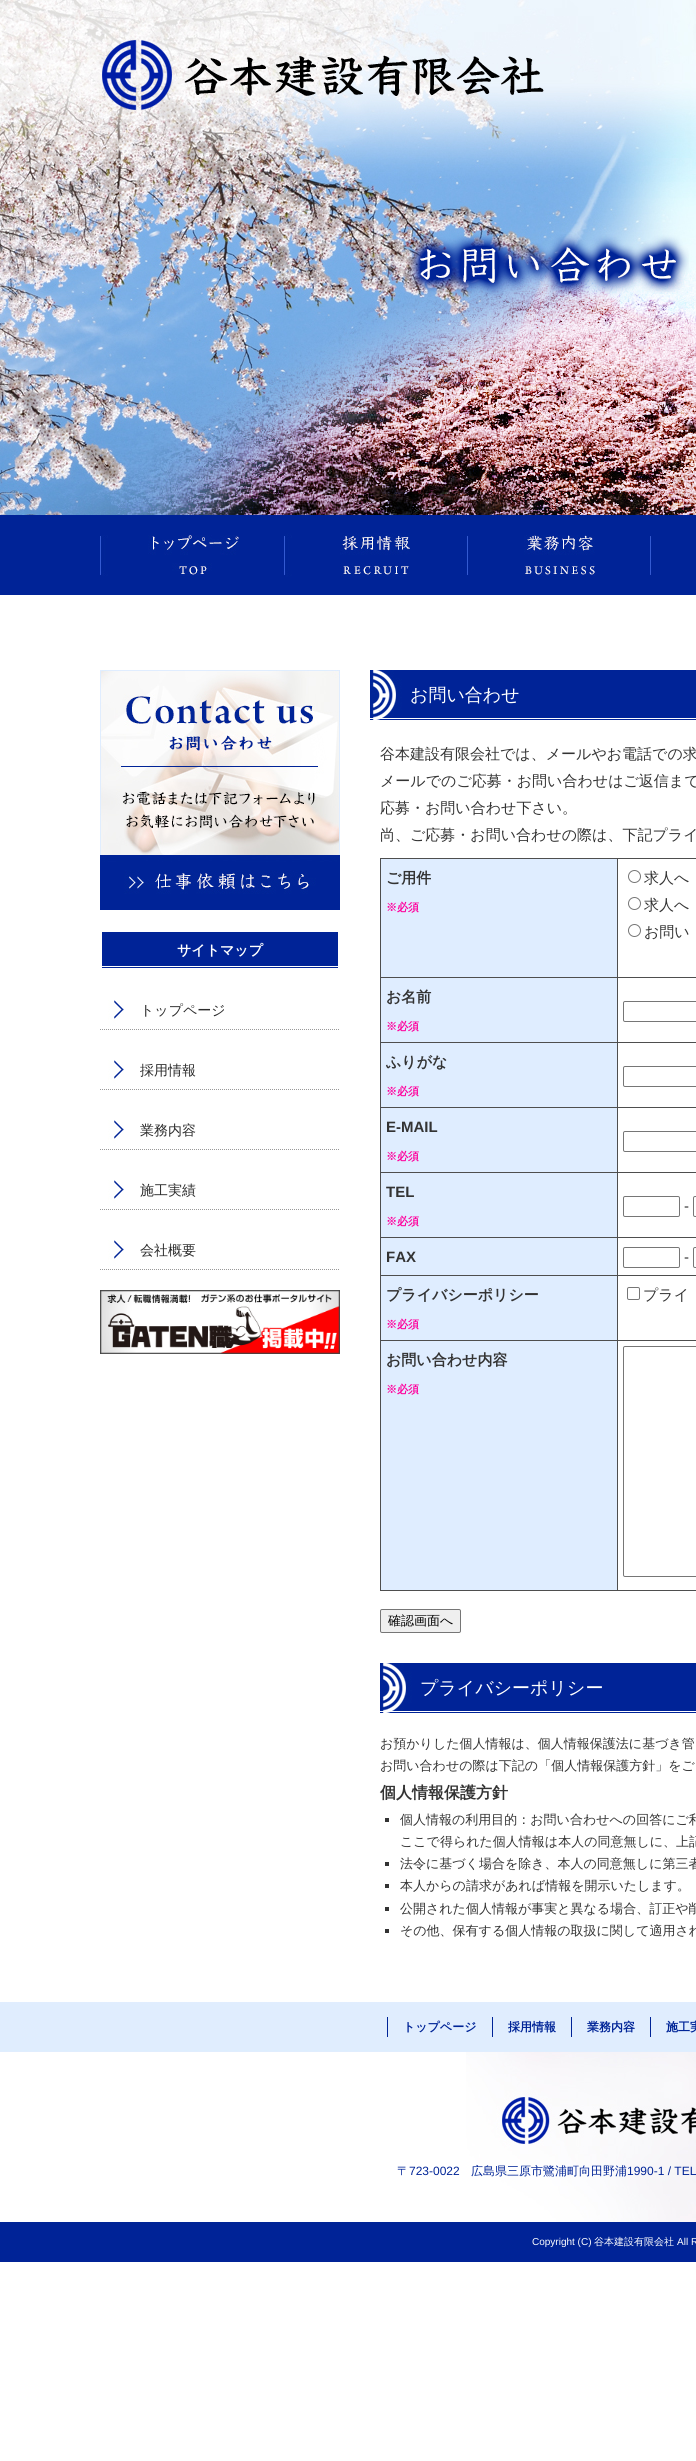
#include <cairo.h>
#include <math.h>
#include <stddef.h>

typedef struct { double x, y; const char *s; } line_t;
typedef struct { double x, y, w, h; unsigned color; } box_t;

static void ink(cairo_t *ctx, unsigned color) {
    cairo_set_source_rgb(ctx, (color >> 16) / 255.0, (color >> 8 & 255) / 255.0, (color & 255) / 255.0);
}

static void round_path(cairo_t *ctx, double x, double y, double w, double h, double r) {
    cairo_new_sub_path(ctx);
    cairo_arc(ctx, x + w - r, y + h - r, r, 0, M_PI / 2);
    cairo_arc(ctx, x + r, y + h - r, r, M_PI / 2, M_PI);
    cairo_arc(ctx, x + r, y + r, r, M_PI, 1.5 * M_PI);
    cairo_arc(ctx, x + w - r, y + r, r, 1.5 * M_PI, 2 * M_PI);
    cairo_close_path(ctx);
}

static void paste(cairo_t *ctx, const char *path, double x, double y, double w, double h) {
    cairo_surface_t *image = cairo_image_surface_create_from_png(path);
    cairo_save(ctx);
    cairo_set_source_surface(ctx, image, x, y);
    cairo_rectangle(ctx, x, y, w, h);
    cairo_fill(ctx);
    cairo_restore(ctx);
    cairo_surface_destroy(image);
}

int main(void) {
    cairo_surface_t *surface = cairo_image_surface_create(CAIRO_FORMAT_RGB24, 696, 2461);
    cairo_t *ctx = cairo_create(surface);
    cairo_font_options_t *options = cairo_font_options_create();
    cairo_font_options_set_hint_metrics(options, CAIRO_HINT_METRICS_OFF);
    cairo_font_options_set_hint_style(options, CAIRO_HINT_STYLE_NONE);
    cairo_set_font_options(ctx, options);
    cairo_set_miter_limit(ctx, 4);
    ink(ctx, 0xFFFFFF);
    cairo_paint(ctx);
    ink(ctx, 0x002397);
    cairo_rectangle(ctx, 0, 515, 696, 80);
    cairo_fill(ctx);
    paste(ctx, "media/1.png", 0, 0, 696, 515);
    paste(ctx, "media/2.png", 102, 40, 442, 70);
    paste(ctx, "media/3.png", 100, 535, 139, 41);
    paste(ctx, "media/4.png", 284, 533, 126, 44);
    paste(ctx, "media/5.png", 467, 535, 128, 41);
    paste(ctx, "media/6.png", 650, 536, 1, 39);
    paste(ctx, "media/7.png", 407, 234, 282, 62);
    paste(ctx, "media/8.png", 100, 670, 240, 240);
    paste(ctx, "media/9.png", 102, 932, 236, 36);
    cairo_select_font_face(ctx, "WenQuanYi Zen Hei", CAIRO_FONT_SLANT_NORMAL, CAIRO_FONT_WEIGHT_BOLD);
    cairo_set_font_size(ctx, 14);
    ink(ctx, 0xFFFFFF);
    cairo_move_to(ctx, 177, 955);
    cairo_show_text(ctx, "サイトマップ");
    paste(ctx, "media/10.png", 100, 1000, 239, 30);
    cairo_select_font_face(ctx, "WenQuanYi Zen Hei Medium", CAIRO_FONT_SLANT_NORMAL, CAIRO_FONT_WEIGHT_NORMAL);
    ink(ctx, 0x2C2C2C);
    cairo_move_to(ctx, 140, 1015);
    cairo_show_text(ctx, "トップページ");
    paste(ctx, "media/10.png", 100, 1060, 239, 30);
    cairo_move_to(ctx, 140, 1075);
    cairo_show_text(ctx, "採用情報");
    paste(ctx, "media/10.png", 100, 1120, 239, 30);
    cairo_move_to(ctx, 140, 1135);
    cairo_show_text(ctx, "業務内容");
    paste(ctx, "media/10.png", 100, 1180, 239, 30);
    cairo_move_to(ctx, 140, 1195);
    cairo_show_text(ctx, "施工実績");
    paste(ctx, "media/10.png", 100, 1240, 239, 30);
    cairo_move_to(ctx, 140, 1255);
    cairo_show_text(ctx, "会社概要");
    paste(ctx, "media/11.png", 100, 1290, 240, 64);
    paste(ctx, "media/12.png", 370, 670, 326, 50);
    cairo_set_font_size(ctx, 18);
    ink(ctx, 0xFFFFFF);
    cairo_move_to(ctx, 410, 701);
    cairo_show_text(ctx, "お問い合わせ");
    cairo_set_font_size(ctx, 15);
    ink(ctx, 0x333333);
    {
        static const line_t items[] = {
            {380, 759, "谷本建設有限会社では、メールやお電話での求"},
            {380, 786, "メールでのご応募・お問い合わせはご返信まで"},
            {380, 813, "応募・お問い合わせ下さい。"},
            {380, 840, "尚、ご応募・お問い合わせの際は、下記プライ"},
        };
        for (size_t i = 0; i < sizeof items / sizeof *items; i++) {
            cairo_move_to(ctx, items[i].x, items[i].y);
            cairo_show_text(ctx, items[i].s);
        }
    }
    {
        static const box_t items[] = {
            {381, 859, 236, 118, 0xDFEDFF},
            {617, 858, 79, 1, 0x4E4E4E},
            {617, 977, 79, 1, 0x4E4E4E},
            {617, 1042, 79, 1, 0x4E4E4E},
            {617, 1107, 79, 1, 0x4E4E4E},
            {617, 1172, 79, 1, 0x4E4E4E},
            {617, 1237, 79, 1, 0x4E4E4E},
            {617, 1275, 79, 1, 0x4E4E4E},
            {617, 1340, 79, 1, 0x4E4E4E},
            {617, 1590, 79, 1, 0x4E4E4E},
            {617, 1340, 1, 251, 0x4E4E4E},
            {380, 1340, 238, 1, 0x4E4E4E},
            {617, 1275, 1, 66, 0x4E4E4E},
            {380, 1275, 238, 1, 0x4E4E4E},
            {617, 1237, 1, 39, 0x4E4E4E},
            {380, 1237, 238, 1, 0x4E4E4E},
            {617, 1172, 1, 66, 0x4E4E4E},
            {380, 1172, 238, 1, 0x4E4E4E},
            {617, 1107, 1, 66, 0x4E4E4E},
            {380, 1107, 238, 1, 0x4E4E4E},
            {617, 1042, 1, 66, 0x4E4E4E},
            {380, 1042, 238, 1, 0x4E4E4E},
            {617, 977, 1, 66, 0x4E4E4E},
            {380, 977, 238, 1, 0x4E4E4E},
            {617, 858, 1, 120, 0x4E4E4E},
            {380, 858, 238, 1, 0x4E4E4E},
            {380, 1590, 238, 1, 0x4E4E4E},
            {380, 1340, 1, 251, 0x4E4E4E},
            {380, 1275, 1, 66, 0x4E4E4E},
            {380, 1237, 1, 39, 0x4E4E4E},
            {380, 1172, 1, 66, 0x4E4E4E},
            {380, 1107, 1, 66, 0x4E4E4E},
            {380, 1042, 1, 66, 0x4E4E4E},
            {380, 977, 1, 66, 0x4E4E4E},
            {380, 858, 1, 120, 0x4E4E4E},
        };
        for (size_t i = 0; i < sizeof items / sizeof *items; i++) {
            ink(ctx, items[i].color);
            cairo_rectangle(ctx, items[i].x, items[i].y, items[i].w, items[i].h);
            cairo_fill(ctx);
        }
    }
    cairo_select_font_face(ctx, "WenQuanYi Zen Hei", CAIRO_FONT_SLANT_NORMAL, CAIRO_FONT_WEIGHT_BOLD);
    ink(ctx, 0x333333);
    cairo_move_to(ctx, 386, 883);
    cairo_show_text(ctx, "ご用件");
    cairo_set_font_size(ctx, 11);
    ink(ctx, 0xFF009C);
    cairo_move_to(ctx, 386, 911);
    cairo_show_text(ctx, "※必須");
    cairo_new_path(ctx);
    cairo_arc(ctx, 634.5, 876.5, 6, 0, 2 * M_PI);
    ink(ctx, 0x767676);
    cairo_set_line_width(ctx, 1);
    cairo_stroke(ctx);
    cairo_select_font_face(ctx, "WenQuanYi Zen Hei Medium", CAIRO_FONT_SLANT_NORMAL, CAIRO_FONT_WEIGHT_NORMAL);
    cairo_set_font_size(ctx, 15);
    ink(ctx, 0x333333);
    cairo_move_to(ctx, 644, 883);
    cairo_show_text(ctx, "求人へ");
    cairo_new_path(ctx);
    cairo_arc(ctx, 634.5, 903.5, 6, 0, 2 * M_PI);
    ink(ctx, 0x767676);
    cairo_stroke(ctx);
    ink(ctx, 0x333333);
    cairo_move_to(ctx, 644, 910);
    cairo_show_text(ctx, "求人へ");
    cairo_new_path(ctx);
    cairo_arc(ctx, 634.5, 930.5, 6, 0, 2 * M_PI);
    ink(ctx, 0x767676);
    cairo_stroke(ctx);
    ink(ctx, 0x333333);
    cairo_move_to(ctx, 644, 937);
    cairo_show_text(ctx, "お問い");
    ink(ctx, 0xDFEDFF);
    cairo_rectangle(ctx, 381, 978, 236, 64);
    cairo_fill(ctx);
    cairo_select_font_face(ctx, "WenQuanYi Zen Hei", CAIRO_FONT_SLANT_NORMAL, CAIRO_FONT_WEIGHT_BOLD);
    ink(ctx, 0x333333);
    cairo_move_to(ctx, 386, 1002);
    cairo_show_text(ctx, "お名前");
    cairo_set_font_size(ctx, 11);
    ink(ctx, 0xFF009C);
    cairo_move_to(ctx, 386, 1030);
    cairo_show_text(ctx, "※必須");
    round_path(ctx, 623.5, 1001.5, 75, 20, 1.5);
    ink(ctx, 0x767676);
    cairo_stroke(ctx);
    ink(ctx, 0xDFEDFF);
    cairo_rectangle(ctx, 381, 1043, 236, 64);
    cairo_fill(ctx);
    cairo_set_font_size(ctx, 15);
    ink(ctx, 0x333333);
    cairo_move_to(ctx, 386, 1067);
    cairo_show_text(ctx, "ふりがな");
    cairo_set_font_size(ctx, 11);
    ink(ctx, 0xFF009C);
    cairo_move_to(ctx, 386, 1095);
    cairo_show_text(ctx, "※必須");
    round_path(ctx, 623.5, 1066.5, 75, 20, 1.5);
    ink(ctx, 0x767676);
    cairo_stroke(ctx);
    ink(ctx, 0xDFEDFF);
    cairo_rectangle(ctx, 381, 1108, 236, 64);
    cairo_fill(ctx);
    cairo_select_font_face(ctx, "Liberation Sans", CAIRO_FONT_SLANT_NORMAL, CAIRO_FONT_WEIGHT_BOLD);
    cairo_set_font_size(ctx, 15);
    ink(ctx, 0x333333);
    cairo_move_to(ctx, 386, 1132);
    cairo_show_text(ctx, "E-MAIL");
    cairo_select_font_face(ctx, "WenQuanYi Zen Hei", CAIRO_FONT_SLANT_NORMAL, CAIRO_FONT_WEIGHT_BOLD);
    cairo_set_font_size(ctx, 11);
    ink(ctx, 0xFF009C);
    cairo_move_to(ctx, 386, 1160);
    cairo_show_text(ctx, "※必須");
    round_path(ctx, 623.5, 1131.5, 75, 20, 1.5);
    ink(ctx, 0x767676);
    cairo_stroke(ctx);
    ink(ctx, 0xDFEDFF);
    cairo_rectangle(ctx, 381, 1173, 236, 64);
    cairo_fill(ctx);
    cairo_select_font_face(ctx, "Liberation Sans", CAIRO_FONT_SLANT_NORMAL, CAIRO_FONT_WEIGHT_BOLD);
    cairo_set_font_size(ctx, 15);
    ink(ctx, 0x333333);
    cairo_move_to(ctx, 386, 1197);
    cairo_show_text(ctx, "TEL");
    cairo_select_font_face(ctx, "WenQuanYi Zen Hei", CAIRO_FONT_SLANT_NORMAL, CAIRO_FONT_WEIGHT_BOLD);
    cairo_set_font_size(ctx, 11);
    ink(ctx, 0xFF009C);
    cairo_move_to(ctx, 386, 1225);
    cairo_show_text(ctx, "※必須");
    round_path(ctx, 623.5, 1196.5, 56, 20, 1.5);
    ink(ctx, 0x767676);
    cairo_stroke(ctx);
    cairo_select_font_face(ctx, "Liberation Sans", CAIRO_FONT_SLANT_NORMAL, CAIRO_FONT_WEIGHT_NORMAL);
    cairo_set_font_size(ctx, 15);
    ink(ctx, 0x333333);
    cairo_move_to(ctx, 684, 1211);
    cairo_show_text(ctx, "-");
    round_path(ctx, 693.5, 1196.5, 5, 20, 1.5);
    ink(ctx, 0x767676);
    cairo_stroke(ctx);
    ink(ctx, 0xDFEDFF);
    cairo_rectangle(ctx, 381, 1238, 236, 37);
    cairo_fill(ctx);
    cairo_select_font_face(ctx, "Liberation Sans", CAIRO_FONT_SLANT_NORMAL, CAIRO_FONT_WEIGHT_BOLD);
    ink(ctx, 0x333333);
    cairo_move_to(ctx, 386, 1262);
    cairo_show_text(ctx, "FAX");
    round_path(ctx, 623.5, 1247.5, 56, 20, 1.5);
    ink(ctx, 0x767676);
    cairo_stroke(ctx);
    cairo_select_font_face(ctx, "Liberation Sans", CAIRO_FONT_SLANT_NORMAL, CAIRO_FONT_WEIGHT_NORMAL);
    ink(ctx, 0x333333);
    cairo_move_to(ctx, 684, 1262);
    cairo_show_text(ctx, "-");
    round_path(ctx, 693.5, 1247.5, 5, 20, 1.5);
    ink(ctx, 0x767676);
    cairo_stroke(ctx);
    ink(ctx, 0xDFEDFF);
    cairo_rectangle(ctx, 381, 1276, 236, 64);
    cairo_fill(ctx);
    cairo_select_font_face(ctx, "WenQuanYi Zen Hei", CAIRO_FONT_SLANT_NORMAL, CAIRO_FONT_WEIGHT_BOLD);
    ink(ctx, 0x333333);
    cairo_move_to(ctx, 386, 1300);
    cairo_show_text(ctx, "プライバシーポリシー");
    cairo_set_font_size(ctx, 11);
    ink(ctx, 0xFF009C);
    cairo_move_to(ctx, 386, 1328);
    cairo_show_text(ctx, "※必須");
    round_path(ctx, 627.5, 1287.5, 12, 12, 1.5);
    ink(ctx, 0x767676);
    cairo_stroke(ctx);
    cairo_select_font_face(ctx, "WenQuanYi Zen Hei Medium", CAIRO_FONT_SLANT_NORMAL, CAIRO_FONT_WEIGHT_NORMAL);
    cairo_set_font_size(ctx, 15);
    ink(ctx, 0x333333);
    cairo_move_to(ctx, 643, 1300);
    cairo_show_text(ctx, "プライ");
    ink(ctx, 0xDFEDFF);
    cairo_rectangle(ctx, 381, 1341, 236, 249);
    cairo_fill(ctx);
    cairo_select_font_face(ctx, "WenQuanYi Zen Hei", CAIRO_FONT_SLANT_NORMAL, CAIRO_FONT_WEIGHT_BOLD);
    ink(ctx, 0x333333);
    cairo_move_to(ctx, 386, 1365);
    cairo_show_text(ctx, "お問い合わせ内容");
    cairo_set_font_size(ctx, 11);
    ink(ctx, 0xFF009C);
    cairo_move_to(ctx, 386, 1393);
    cairo_show_text(ctx, "※必須");
    round_path(ctx, 623.5, 1346.5, 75, 230, 1.5);
    ink(ctx, 0x767676);
    cairo_stroke(ctx);
    ink(ctx, 0xEFEFEF);
    round_path(ctx, 380.5, 1609.5, 80, 23, 1.5);
    cairo_fill_preserve(ctx);
    ink(ctx, 0x767676);
    cairo_stroke(ctx);
    cairo_select_font_face(ctx, "WenQuanYi Zen Hei Medium", CAIRO_FONT_SLANT_NORMAL, CAIRO_FONT_WEIGHT_NORMAL);
    cairo_set_font_size(ctx, 13);
    ink(ctx, 0x000000);
    cairo_move_to(ctx, 388, 1625);
    cairo_show_text(ctx, "確認画面へ");
    paste(ctx, "media/13.png", 380, 1663, 316, 50);
    cairo_set_font_size(ctx, 18);
    ink(ctx, 0xFFFFFF);
    cairo_move_to(ctx, 420, 1694);
    cairo_show_text(ctx, "プライバシーポリシー");
    cairo_set_font_size(ctx, 13);
    ink(ctx, 0x333333);
    cairo_move_to(ctx, 380, 1748);
    cairo_show_text(ctx, "お預かりした個人情報は、個人情報保護法に基づき管");
    cairo_move_to(ctx, 380, 1770);
    cairo_show_text(ctx, "お問い合わせの際は下記の「個人情報保護方針」をご");
    cairo_select_font_face(ctx, "WenQuanYi Zen Hei", CAIRO_FONT_SLANT_NORMAL, CAIRO_FONT_WEIGHT_BOLD);
    cairo_set_font_size(ctx, 16);
    cairo_move_to(ctx, 380, 1798);
    cairo_show_text(ctx, "個人情報保護方針");
    cairo_rectangle(ctx, 385, 1818, 4, 4);
    cairo_fill(ctx);
    cairo_select_font_face(ctx, "WenQuanYi Zen Hei Medium", CAIRO_FONT_SLANT_NORMAL, CAIRO_FONT_WEIGHT_NORMAL);
    cairo_set_font_size(ctx, 13);
    cairo_move_to(ctx, 400, 1824);
    cairo_show_text(ctx, "個人情報の利用目的：お問い合わせへの回答にご利");
    cairo_move_to(ctx, 400, 1846);
    cairo_show_text(ctx, "ここで得られた個人情報は本人の同意無しに、上記");
    cairo_rectangle(ctx, 385, 1862, 4, 4);
    cairo_fill(ctx);
    cairo_move_to(ctx, 400, 1868);
    cairo_show_text(ctx, "法令に基づく場合を除き、本人の同意無しに第三者");
    cairo_rectangle(ctx, 385, 1884, 4, 4);
    cairo_fill(ctx);
    cairo_move_to(ctx, 400, 1890);
    cairo_show_text(ctx, "本人からの請求があれば情報を開示いたします。");
    cairo_rectangle(ctx, 385, 1907, 4, 4);
    cairo_fill(ctx);
    cairo_move_to(ctx, 400, 1913);
    cairo_show_text(ctx, "公開された個人情報が事実と異なる場合、訂正や削");
    cairo_rectangle(ctx, 385, 1929, 4, 4);
    cairo_fill(ctx);
    cairo_move_to(ctx, 400, 1935);
    cairo_show_text(ctx, "その他、保有する個人情報の取扱に関して適用され");
    paste(ctx, "media/14.png", 0, 2002, 696, 260);
    paste(ctx, "media/15.png", 466, 2052, 230, 170);
    ink(ctx, 0x002497);
    cairo_rectangle(ctx, 492, 2017, 1, 20);
    cairo_fill(ctx);
    cairo_rectangle(ctx, 387, 2017, 1, 20);
    cairo_fill(ctx);
    cairo_select_font_face(ctx, "WenQuanYi Zen Hei", CAIRO_FONT_SLANT_NORMAL, CAIRO_FONT_WEIGHT_BOLD);
    cairo_set_font_size(ctx, 12);
    cairo_move_to(ctx, 403, 2031);
    cairo_show_text(ctx, "トップページ");
    cairo_rectangle(ctx, 571, 2017, 1, 20);
    cairo_fill(ctx);
    cairo_move_to(ctx, 508, 2031);
    cairo_show_text(ctx, "採用情報");
    cairo_rectangle(ctx, 650, 2017, 1, 20);
    cairo_fill(ctx);
    cairo_move_to(ctx, 587, 2031);
    cairo_show_text(ctx, "業務内容");
    cairo_move_to(ctx, 666, 2031);
    cairo_show_text(ctx, "施工実");
    cairo_select_font_face(ctx, "WenQuanYi Zen Hei Medium", CAIRO_FONT_SLANT_NORMAL, CAIRO_FONT_WEIGHT_NORMAL);
    cairo_move_to(ctx, 397, 2175);
    cairo_show_text(ctx, "〒");
    cairo_select_font_face(ctx, "Liberation Sans", CAIRO_FONT_SLANT_NORMAL, CAIRO_FONT_WEIGHT_NORMAL);
    cairo_move_to(ctx, 409, 2175);
    cairo_show_text(ctx, "723-0022");
    cairo_select_font_face(ctx, "WenQuanYi Zen Hei Medium", CAIRO_FONT_SLANT_NORMAL, CAIRO_FONT_WEIGHT_NORMAL);
    cairo_move_to(ctx, 471, 2175);
    cairo_show_text(ctx, "広島県三原市鷺浦町向田野浦");
    cairo_select_font_face(ctx, "Liberation Sans", CAIRO_FONT_SLANT_NORMAL, CAIRO_FONT_WEIGHT_NORMAL);
    cairo_move_to(ctx, 627, 2175);
    cairo_show_text(ctx, "1990-1 / TEL");
    cairo_set_font_size(ctx, 10);
    ink(ctx, 0xFFFFFF);
    cairo_move_to(ctx, 532, 2245);
    cairo_show_text(ctx, "Copyright (C)");
    cairo_select_font_face(ctx, "WenQuanYi Zen Hei Medium", CAIRO_FONT_SLANT_NORMAL, CAIRO_FONT_WEIGHT_NORMAL);
    cairo_move_to(ctx, 594, 2245);
    cairo_show_text(ctx, "谷本建設有限会社");
    cairo_select_font_face(ctx, "Liberation Sans", CAIRO_FONT_SLANT_NORMAL, CAIRO_FONT_WEIGHT_NORMAL);
    cairo_move_to(ctx, 677, 2245);
    cairo_show_text(ctx, "All R");
    cairo_surface_write_to_png(surface, "image.png");
    cairo_font_options_destroy(options);
    cairo_destroy(ctx);
    cairo_surface_destroy(surface);
    return 0;
}
